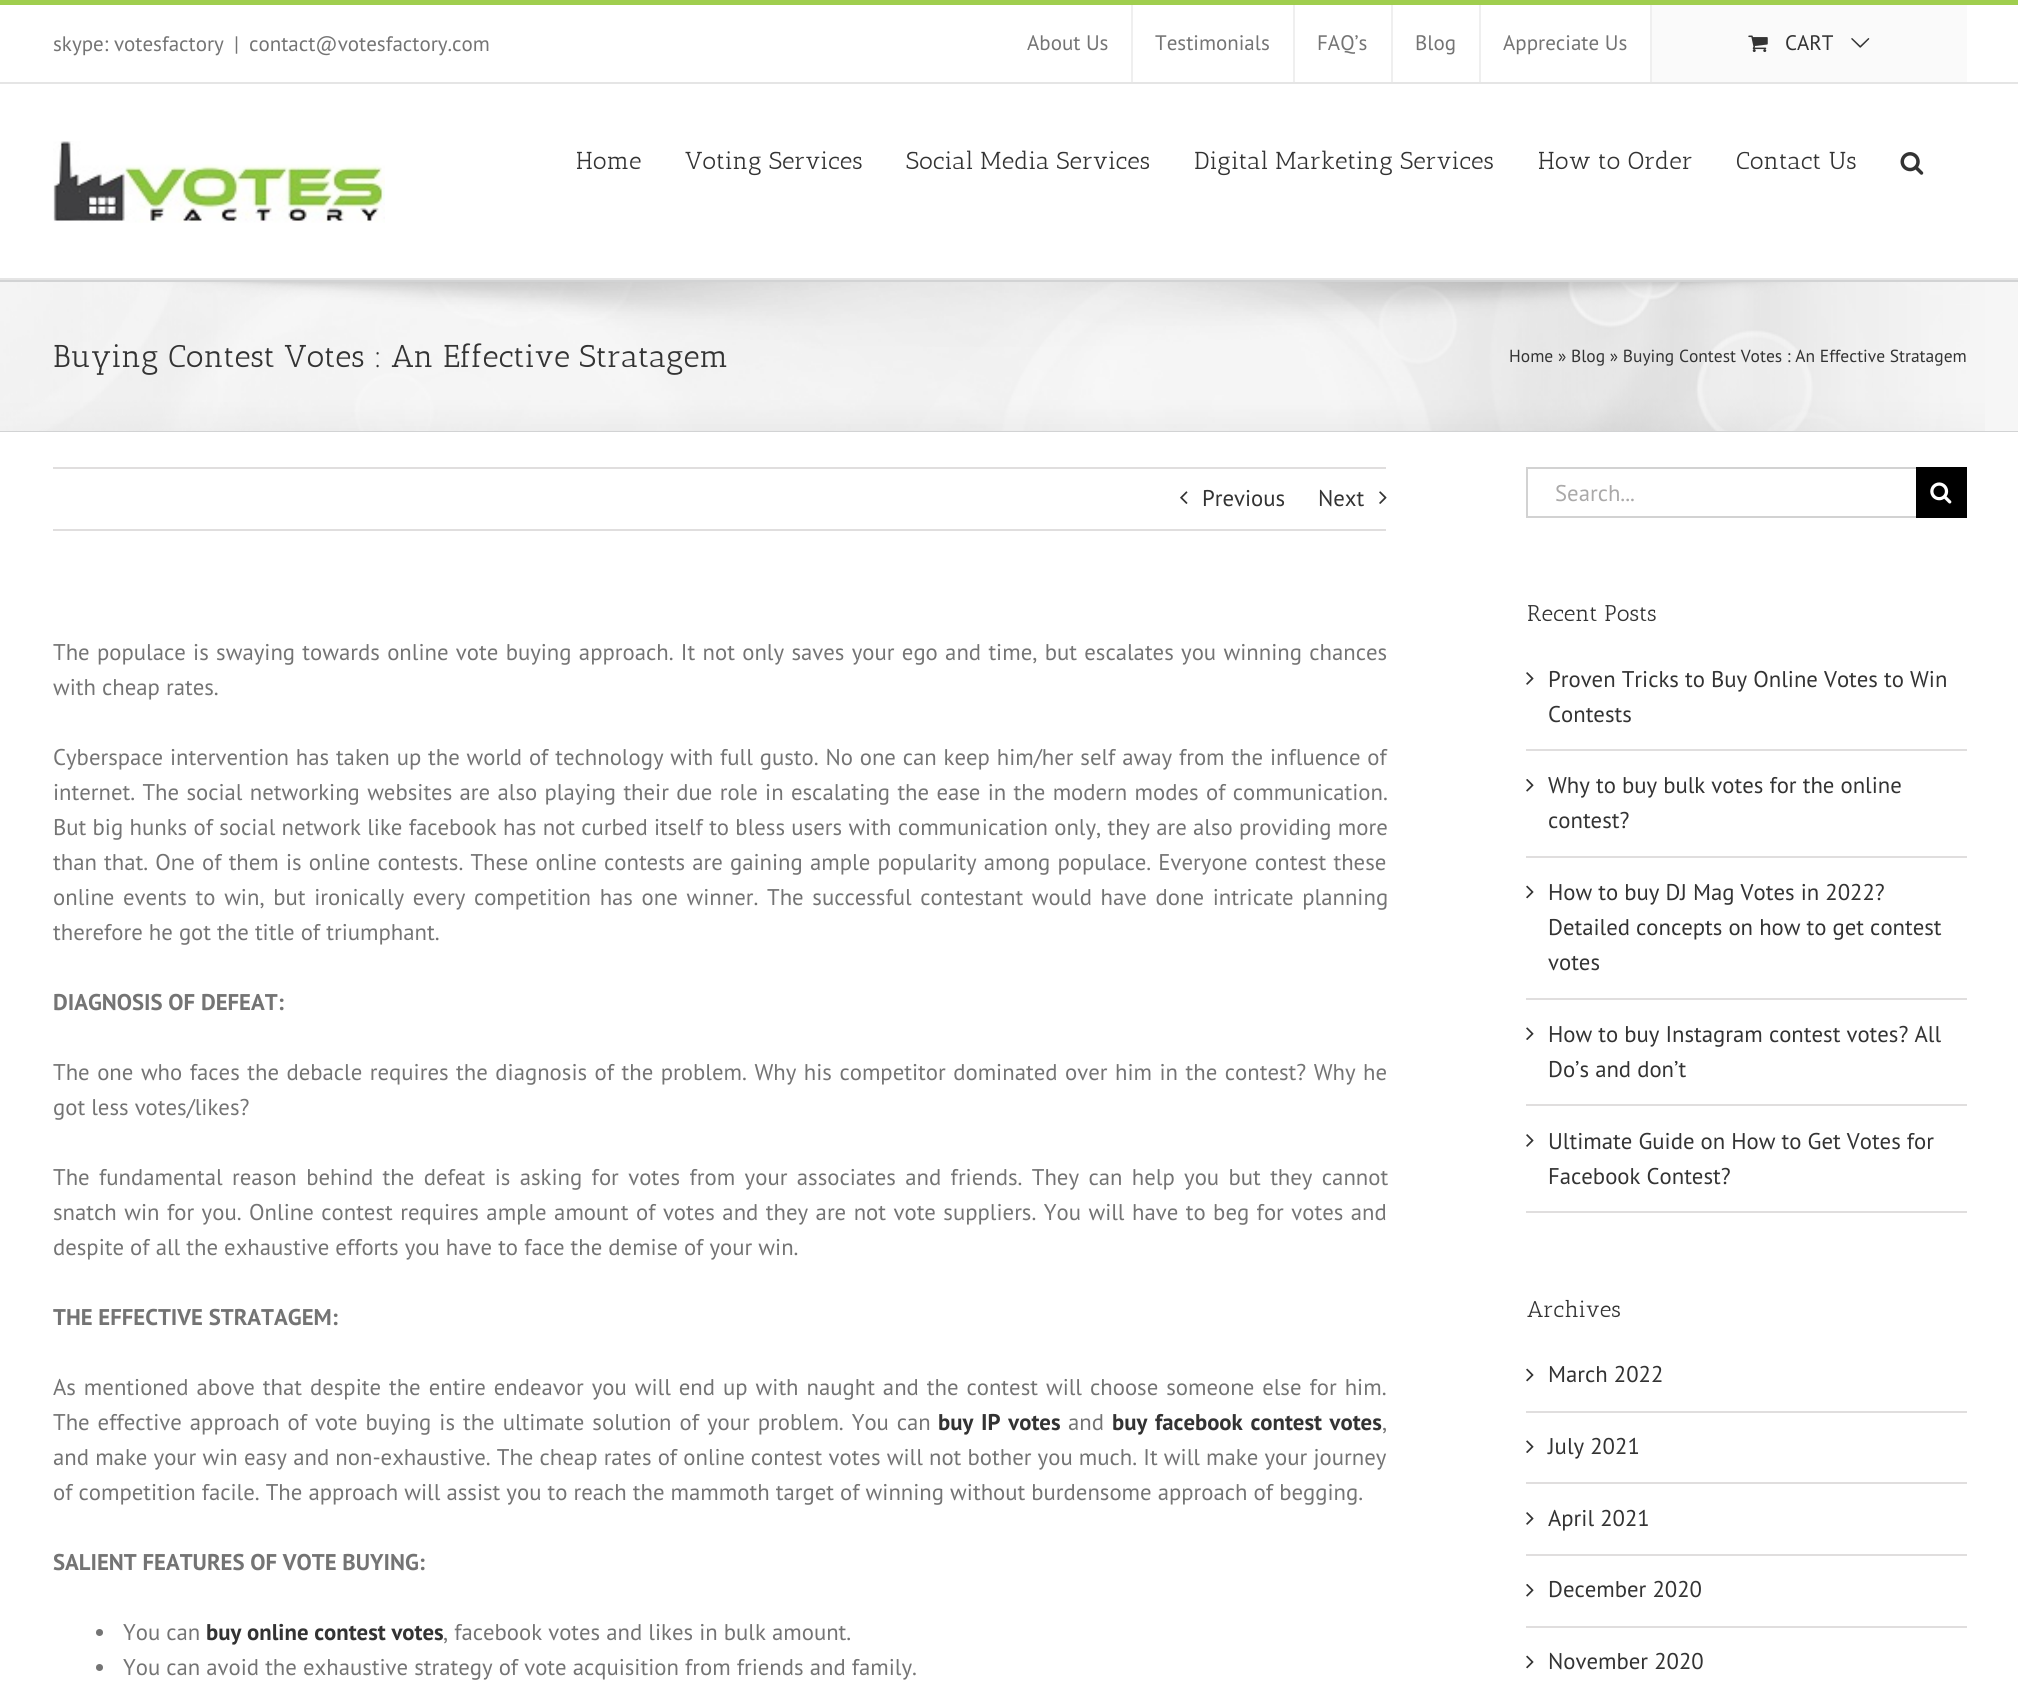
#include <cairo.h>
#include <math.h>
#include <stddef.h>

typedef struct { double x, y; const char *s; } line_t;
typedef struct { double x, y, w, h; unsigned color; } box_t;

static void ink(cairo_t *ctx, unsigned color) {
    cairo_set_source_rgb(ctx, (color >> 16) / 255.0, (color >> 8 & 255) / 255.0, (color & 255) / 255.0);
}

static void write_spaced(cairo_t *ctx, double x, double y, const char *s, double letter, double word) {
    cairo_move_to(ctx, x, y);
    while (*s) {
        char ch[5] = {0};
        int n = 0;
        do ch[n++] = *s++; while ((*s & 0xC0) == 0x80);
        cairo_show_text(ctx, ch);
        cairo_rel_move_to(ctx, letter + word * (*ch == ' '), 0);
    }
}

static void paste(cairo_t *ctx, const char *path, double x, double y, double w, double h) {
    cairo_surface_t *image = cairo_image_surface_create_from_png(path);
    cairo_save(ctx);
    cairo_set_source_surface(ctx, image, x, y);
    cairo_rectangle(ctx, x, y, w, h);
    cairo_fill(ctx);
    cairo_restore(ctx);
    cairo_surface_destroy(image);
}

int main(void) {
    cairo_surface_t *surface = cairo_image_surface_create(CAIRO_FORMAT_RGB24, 2018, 1683);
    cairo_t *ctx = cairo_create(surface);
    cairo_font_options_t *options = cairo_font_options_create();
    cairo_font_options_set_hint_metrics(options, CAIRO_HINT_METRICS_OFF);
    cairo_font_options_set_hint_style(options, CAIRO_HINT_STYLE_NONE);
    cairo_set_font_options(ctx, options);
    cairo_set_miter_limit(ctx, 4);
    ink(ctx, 0xFFFFFF);
    cairo_paint(ctx);
    ink(ctx, 0xA0CE4E);
    cairo_rectangle(ctx, 0, 0, 2018, 5);
    cairo_fill(ctx);
    ink(ctx, 0xE5E5E5);
    cairo_rectangle(ctx, 0, 82, 2018, 2);
    cairo_fill(ctx);
    cairo_select_font_face(ctx, "PT Sans", CAIRO_FONT_SLANT_NORMAL, CAIRO_FONT_WEIGHT_NORMAL);
    cairo_set_font_size(ctx, 21);
    ink(ctx, 0x747474);
    {
        static const line_t items[] = {
            {53, 51, "skype: votesfactory"},
            {234, 51, "|"},
            {249, 51, "contact@votesfactory.com"},
            {1027, 50, "About Us"},
        };
        for (size_t i = 0; i < sizeof items / sizeof *items; i++) {
            cairo_move_to(ctx, items[i].x, items[i].y);
            cairo_show_text(ctx, items[i].s);
        }
    }
    ink(ctx, 0xEFEFEF);
    cairo_rectangle(ctx, 1131, 5, 2, 77);
    cairo_fill(ctx);
    ink(ctx, 0x747474);
    cairo_move_to(ctx, 1155, 50);
    cairo_show_text(ctx, "Testimonials");
    ink(ctx, 0xEFEFEF);
    cairo_rectangle(ctx, 1293, 5, 2, 77);
    cairo_fill(ctx);
    ink(ctx, 0x747474);
    cairo_move_to(ctx, 1317, 50);
    cairo_show_text(ctx, "FAQ’s");
    ink(ctx, 0xEFEFEF);
    cairo_rectangle(ctx, 1391, 5, 2, 77);
    cairo_fill(ctx);
    ink(ctx, 0x747474);
    cairo_move_to(ctx, 1415, 50);
    cairo_show_text(ctx, "Blog");
    ink(ctx, 0xEFEFEF);
    cairo_rectangle(ctx, 1479, 5, 2, 77);
    cairo_fill(ctx);
    ink(ctx, 0x747474);
    cairo_move_to(ctx, 1503, 50);
    cairo_show_text(ctx, "Appreciate Us");
    ink(ctx, 0xEFEFEF);
    cairo_rectangle(ctx, 1650, 5, 2, 77);
    cairo_fill(ctx);
    ink(ctx, 0xFAFAFA);
    cairo_rectangle(ctx, 1652, 5, 315, 77);
    cairo_fill(ctx);
    paste(ctx, "media/1.png", 1748, 35, 20, 17);
    ink(ctx, 0x333333);
    cairo_move_to(ctx, 1785, 50);
    cairo_show_text(ctx, "CART");
    paste(ctx, "media/2.png", 1851, 38, 19, 10);
    ink(ctx, 0xE5E5E5);
    cairo_rectangle(ctx, 0, 278, 2018, 2);
    cairo_fill(ctx);
    paste(ctx, "media/3.png", 53, 141, 332, 82);
    cairo_select_font_face(ctx, "Antic Slab", CAIRO_FONT_SLANT_NORMAL, CAIRO_FONT_WEIGHT_NORMAL);
    cairo_set_font_size(ctx, 24.5);
    ink(ctx, 0x333333);
    {
        static const line_t items[] = {
            {576, 169, "Home"},
            {685, 169, "Voting Services"},
            {906, 169, "Social Media Services"},
            {1194, 169, "Digital Marketing Services"},
            {1538, 169, "How to Order"},
            {1736, 169, "Contact Us"},
        };
        for (size_t i = 0; i < sizeof items / sizeof *items; i++) {
            cairo_move_to(ctx, items[i].x, items[i].y);
            cairo_show_text(ctx, items[i].s);
        }
    }
    paste(ctx, "media/4.png", 1900, 152, 24, 23);
    ink(ctx, 0xF6F6F6);
    cairo_rectangle(ctx, 0, 282, 2018, 149);
    cairo_fill(ctx);
    paste(ctx, "media/5.png", 0, 282, 1985, 149);
    ink(ctx, 0xD2D3D4);
    cairo_rectangle(ctx, 0, 280, 2018, 2);
    cairo_fill(ctx);
    cairo_rectangle(ctx, 0, 431, 2018, 1);
    cairo_fill(ctx);
    cairo_set_font_size(ctx, 31.5);
    ink(ctx, 0x333333);
    cairo_move_to(ctx, 53, 367);
    cairo_show_text(ctx, "Buying Contest Votes : An Effective Stratagem");
    cairo_select_font_face(ctx, "PT Sans", CAIRO_FONT_SLANT_NORMAL, CAIRO_FONT_WEIGHT_NORMAL);
    cairo_set_font_size(ctx, 17.5);
    cairo_move_to(ctx, 1509, 362);
    cairo_show_text(ctx, "Home » Blog » Buying Contest Votes : An Effective Stratagem");
    ink(ctx, 0xE0DEDE);
    cairo_rectangle(ctx, 53, 467, 1333, 2);
    cairo_fill(ctx);
    cairo_rectangle(ctx, 53, 529, 1333, 2);
    cairo_fill(ctx);
    paste(ctx, "media/6.png", 1180, 491, 8, 13);
    cairo_set_font_size(ctx, 22.75);
    ink(ctx, 0x333333);
    cairo_move_to(ctx, 1202, 506);
    cairo_show_text(ctx, "Previous");
    cairo_move_to(ctx, 1318, 506);
    cairo_show_text(ctx, "Next");
    paste(ctx, "media/7.png", 1379, 491, 8, 13);
    ink(ctx, 0x747474);
    write_spaced(ctx, 53, 660, "The populace is swaying towards online vote buying approach. It not only saves your ego and time, but escalates you winning chances", 0, 1.25);
    cairo_move_to(ctx, 53, 695);
    cairo_show_text(ctx, "with cheap rates.");
    write_spaced(ctx, 53, 765, "Cyberspace intervention has taken up the world of technology with full gusto. No one can keep him/her self away from the influence of", 0, 0.75);
    write_spaced(ctx, 53, 800, "internet. The social networking websites are also playing their due role in escalating the ease in the modern modes of communication.", 0, 1.25);
    write_spaced(ctx, 53, 835, "But big hunks of social network like facebook has not curbed itself to bless users with communication only, they are also providing more", 0, 0.25);
    write_spaced(ctx, 53, 870, "than that. One of them is online contests. These online contests are gaining ample popularity among populace. Everyone contest these", 0, 1.1);
    write_spaced(ctx, 53, 905, "online events to win, but ironically every competition has one winner. The successful contestant would have done intricate planning", 0, 2.6);
    cairo_move_to(ctx, 53, 940);
    cairo_show_text(ctx, "therefore he got the title of triumphant.");
    cairo_select_font_face(ctx, "PT Sans", CAIRO_FONT_SLANT_NORMAL, CAIRO_FONT_WEIGHT_BOLD);
    cairo_move_to(ctx, 53, 1010);
    cairo_show_text(ctx, "DIAGNOSIS OF DEFEAT:");
    cairo_select_font_face(ctx, "PT Sans", CAIRO_FONT_SLANT_NORMAL, CAIRO_FONT_WEIGHT_NORMAL);
    write_spaced(ctx, 53, 1080, "The one who faces the debacle requires the diagnosis of the problem. Why his competitor dominated over him in the contest? Why he", 0, 1.45);
    cairo_move_to(ctx, 53, 1115);
    cairo_show_text(ctx, "got less votes/likes?");
    write_spaced(ctx, 53, 1185, "The fundamental reason behind the defeat is asking for votes from your associates and friends. They can help you but they cannot", 0, 3.3);
    write_spaced(ctx, 53, 1220, "snatch win for you. Online contest requires ample amount of votes and they are not vote suppliers. You will have to beg for votes and", 0, 1.4);
    cairo_move_to(ctx, 53, 1255);
    cairo_show_text(ctx, "despite of all the exhaustive efforts you have to face the demise of your win.");
    cairo_select_font_face(ctx, "PT Sans", CAIRO_FONT_SLANT_NORMAL, CAIRO_FONT_WEIGHT_BOLD);
    cairo_move_to(ctx, 53, 1325);
    cairo_show_text(ctx, "THE EFFECTIVE STRATAGEM:");
    cairo_select_font_face(ctx, "PT Sans", CAIRO_FONT_SLANT_NORMAL, CAIRO_FONT_WEIGHT_NORMAL);
    write_spaced(ctx, 53, 1395, "As mentioned above that despite the entire endeavor you will end up with naught and the contest will choose someone else for him.", 0, 1.9);
    write_spaced(ctx, 53, 1430, "The effective approach of vote buying is the ultimate solution of your problem. You can", 0, 1.9);
    cairo_select_font_face(ctx, "PT Sans", CAIRO_FONT_SLANT_NORMAL, CAIRO_FONT_WEIGHT_BOLD);
    ink(ctx, 0x333333);
    write_spaced(ctx, 938, 1430, "buy IP votes", 0, 2);
    cairo_select_font_face(ctx, "PT Sans", CAIRO_FONT_SLANT_NORMAL, CAIRO_FONT_WEIGHT_NORMAL);
    ink(ctx, 0x747474);
    cairo_move_to(ctx, 1068, 1430);
    cairo_show_text(ctx, "and");
    cairo_select_font_face(ctx, "PT Sans", CAIRO_FONT_SLANT_NORMAL, CAIRO_FONT_WEIGHT_BOLD);
    ink(ctx, 0x333333);
    write_spaced(ctx, 1112, 1430, "buy facebook contest votes", 0, 1.9);
    cairo_select_font_face(ctx, "PT Sans", CAIRO_FONT_SLANT_NORMAL, CAIRO_FONT_WEIGHT_NORMAL);
    ink(ctx, 0x747474);
    cairo_move_to(ctx, 1382, 1430);
    cairo_show_text(ctx, ",");
    write_spaced(ctx, 53, 1465, "and make your win easy and non-exhaustive. The cheap rates of online contest votes will not bother you much. It will make your journey", 0, 0.1);
    cairo_move_to(ctx, 53, 1500);
    cairo_show_text(ctx, "of competition facile. The approach will assist you to reach the mammoth target of winning without burdensome approach of begging.");
    cairo_select_font_face(ctx, "PT Sans", CAIRO_FONT_SLANT_NORMAL, CAIRO_FONT_WEIGHT_BOLD);
    cairo_move_to(ctx, 53, 1570);
    cairo_show_text(ctx, "SALIENT FEATURES OF VOTE BUYING:");
    cairo_new_path(ctx);
    cairo_arc(ctx, 99.5, 1632.5, 3.5, 0, 2 * M_PI);
    cairo_fill(ctx);
    cairo_select_font_face(ctx, "PT Sans", CAIRO_FONT_SLANT_NORMAL, CAIRO_FONT_WEIGHT_NORMAL);
    cairo_move_to(ctx, 123, 1640);
    cairo_show_text(ctx, "You can");
    cairo_select_font_face(ctx, "PT Sans", CAIRO_FONT_SLANT_NORMAL, CAIRO_FONT_WEIGHT_BOLD);
    ink(ctx, 0x333333);
    cairo_move_to(ctx, 206, 1640);
    cairo_show_text(ctx, "buy online contest votes");
    cairo_select_font_face(ctx, "PT Sans", CAIRO_FONT_SLANT_NORMAL, CAIRO_FONT_WEIGHT_NORMAL);
    ink(ctx, 0x747474);
    cairo_move_to(ctx, 443, 1640);
    cairo_show_text(ctx, ", facebook votes and likes in bulk amount.");
    cairo_new_path(ctx);
    cairo_arc(ctx, 99.5, 1667.5, 3.5, 0, 2 * M_PI);
    cairo_fill(ctx);
    cairo_move_to(ctx, 123, 1675);
    cairo_show_text(ctx, "You can avoid the exhaustive strategy of vote acquisition from friends and family.");
    {
        static const box_t items[] = {
            {1526, 467, 390, 2, 0xD2D2D2},
            {1526, 516, 390, 2, 0xD2D2D2},
            {1526, 467, 2, 51, 0xD2D2D2},
        };
        for (size_t i = 0; i < sizeof items / sizeof *items; i++) {
            ink(ctx, items[i].color);
            cairo_rectangle(ctx, items[i].x, items[i].y, items[i].w, items[i].h);
            cairo_fill(ctx);
        }
    }
    ink(ctx, 0xAAA9A9);
    cairo_move_to(ctx, 1555, 501);
    cairo_show_text(ctx, "Search...");
    ink(ctx, 0x000000);
    cairo_rectangle(ctx, 1916, 467, 51, 51);
    cairo_fill(ctx);
    paste(ctx, "media/8.png", 1930, 482, 22, 22);
    cairo_select_font_face(ctx, "Antic Slab", CAIRO_FONT_SLANT_NORMAL, CAIRO_FONT_WEIGHT_NORMAL);
    ink(ctx, 0x333333);
    cairo_move_to(ctx, 1527, 621);
    cairo_show_text(ctx, "Recent Posts");
    ink(ctx, 0xE0DEDE);
    cairo_rectangle(ctx, 1526, 749, 441, 2);
    cairo_fill(ctx);
    paste(ctx, "media/9.png", 1526, 672, 8, 13);
    cairo_select_font_face(ctx, "PT Sans", CAIRO_FONT_SLANT_NORMAL, CAIRO_FONT_WEIGHT_NORMAL);
    ink(ctx, 0x333333);
    cairo_move_to(ctx, 1548, 687);
    cairo_show_text(ctx, "Proven Tricks to Buy Online Votes to Win");
    cairo_move_to(ctx, 1548, 722);
    cairo_show_text(ctx, "Contests");
    ink(ctx, 0xE0DEDE);
    cairo_rectangle(ctx, 1526, 856, 441, 2);
    cairo_fill(ctx);
    paste(ctx, "media/10.png", 1526, 779, 8, 13);
    ink(ctx, 0x333333);
    cairo_move_to(ctx, 1548, 793);
    cairo_show_text(ctx, "Why to buy bulk votes for the online");
    cairo_move_to(ctx, 1548, 828);
    cairo_show_text(ctx, "contest?");
    ink(ctx, 0xE0DEDE);
    cairo_rectangle(ctx, 1526, 998, 441, 2);
    cairo_fill(ctx);
    paste(ctx, "media/11.png", 1526, 885, 8, 14);
    ink(ctx, 0x333333);
    {
        static const line_t items[] = {
            {1548, 900, "How to buy DJ Mag Votes in 2022?"},
            {1548, 935, "Detailed concepts on how to get contest"},
            {1548, 970, "votes"},
        };
        for (size_t i = 0; i < sizeof items / sizeof *items; i++) {
            cairo_move_to(ctx, items[i].x, items[i].y);
            cairo_show_text(ctx, items[i].s);
        }
    }
    ink(ctx, 0xE0DEDE);
    cairo_rectangle(ctx, 1526, 1104, 441, 2);
    cairo_fill(ctx);
    paste(ctx, "media/12.png", 1526, 1027, 8, 13);
    ink(ctx, 0x333333);
    cairo_move_to(ctx, 1548, 1042);
    cairo_show_text(ctx, "How to buy Instagram contest votes? All");
    cairo_move_to(ctx, 1548, 1077);
    cairo_show_text(ctx, "Do’s and don’t");
    ink(ctx, 0xE0DEDE);
    cairo_rectangle(ctx, 1526, 1211, 441, 2);
    cairo_fill(ctx);
    paste(ctx, "media/9.png", 1526, 1134, 8, 13);
    ink(ctx, 0x333333);
    cairo_move_to(ctx, 1548, 1149);
    cairo_show_text(ctx, "Ultimate Guide on How to Get Votes for");
    cairo_move_to(ctx, 1548, 1184);
    cairo_show_text(ctx, "Facebook Contest?");
    cairo_select_font_face(ctx, "Antic Slab", CAIRO_FONT_SLANT_NORMAL, CAIRO_FONT_WEIGHT_NORMAL);
    cairo_move_to(ctx, 1527, 1317);
    cairo_show_text(ctx, "Archives");
    ink(ctx, 0xE0DEDE);
    cairo_rectangle(ctx, 1526, 1411, 441, 2);
    cairo_fill(ctx);
    paste(ctx, "media/11.png", 1526, 1368, 8, 14);
    cairo_select_font_face(ctx, "PT Sans", CAIRO_FONT_SLANT_NORMAL, CAIRO_FONT_WEIGHT_NORMAL);
    ink(ctx, 0x333333);
    cairo_move_to(ctx, 1548, 1382);
    cairo_show_text(ctx, "March 2022");
    ink(ctx, 0xE0DEDE);
    cairo_rectangle(ctx, 1526, 1482, 441, 2);
    cairo_fill(ctx);
    paste(ctx, "media/12.png", 1526, 1440, 8, 13);
    ink(ctx, 0x333333);
    cairo_move_to(ctx, 1548, 1454);
    cairo_show_text(ctx, "July 2021");
    ink(ctx, 0xE0DEDE);
    cairo_rectangle(ctx, 1526, 1554, 441, 2);
    cairo_fill(ctx);
    paste(ctx, "media/9.png", 1526, 1512, 8, 13);
    ink(ctx, 0x333333);
    cairo_move_to(ctx, 1548, 1526);
    cairo_show_text(ctx, "April 2021");
    ink(ctx, 0xE0DEDE);
    cairo_rectangle(ctx, 1526, 1626, 441, 2);
    cairo_fill(ctx);
    paste(ctx, "media/10.png", 1526, 1584, 8, 13);
    ink(ctx, 0x333333);
    cairo_move_to(ctx, 1548, 1597);
    cairo_show_text(ctx, "December 2020");
    paste(ctx, "media/11.png", 1526, 1655, 8, 14);
    cairo_move_to(ctx, 1548, 1669);
    cairo_show_text(ctx, "November 2020");
    cairo_surface_write_to_png(surface, "image.png");
    cairo_font_options_destroy(options);
    cairo_destroy(ctx);
    cairo_surface_destroy(surface);
    return 0;
}
